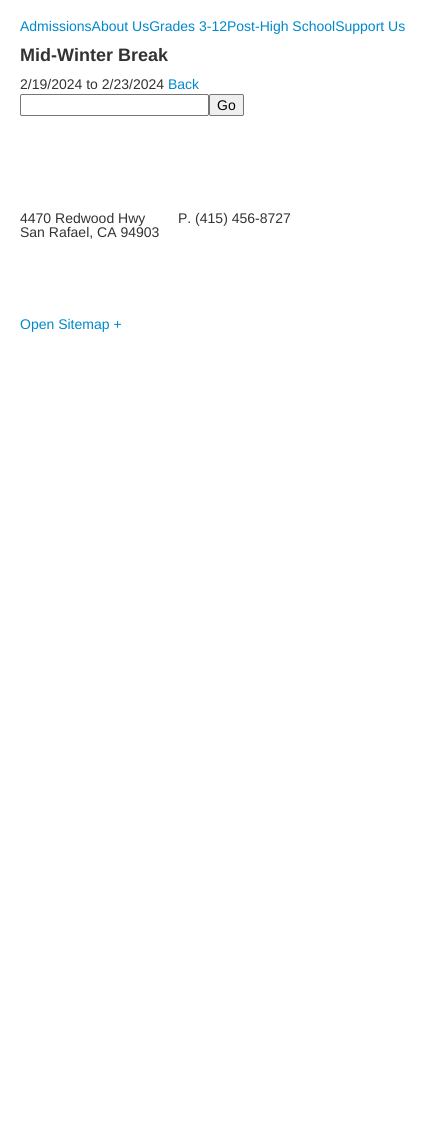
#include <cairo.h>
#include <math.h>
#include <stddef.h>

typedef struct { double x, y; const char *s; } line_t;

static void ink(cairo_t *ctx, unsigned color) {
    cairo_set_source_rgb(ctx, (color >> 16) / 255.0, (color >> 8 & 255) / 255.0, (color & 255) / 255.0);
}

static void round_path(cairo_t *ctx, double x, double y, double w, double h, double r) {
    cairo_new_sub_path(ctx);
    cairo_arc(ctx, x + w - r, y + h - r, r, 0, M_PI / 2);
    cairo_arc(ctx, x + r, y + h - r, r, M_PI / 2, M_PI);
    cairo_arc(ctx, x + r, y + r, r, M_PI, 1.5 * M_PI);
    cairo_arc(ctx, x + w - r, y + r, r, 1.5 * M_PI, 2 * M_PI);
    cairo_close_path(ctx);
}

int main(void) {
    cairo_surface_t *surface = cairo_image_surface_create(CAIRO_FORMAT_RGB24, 434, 1146);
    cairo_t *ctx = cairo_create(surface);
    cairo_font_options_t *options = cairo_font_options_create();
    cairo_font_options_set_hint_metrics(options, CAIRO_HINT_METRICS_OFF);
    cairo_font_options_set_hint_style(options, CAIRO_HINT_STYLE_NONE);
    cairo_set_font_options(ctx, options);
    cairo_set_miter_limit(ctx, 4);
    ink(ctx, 0xFFFFFF);
    cairo_paint(ctx);
    cairo_select_font_face(ctx, "Liberation Sans", CAIRO_FONT_SLANT_NORMAL, CAIRO_FONT_WEIGHT_NORMAL);
    cairo_set_font_size(ctx, 14);
    ink(ctx, 0x0088CC);
    cairo_move_to(ctx, 20, 31);
    cairo_show_text(ctx, "AdmissionsAbout UsGrades 3-12Post-High SchoolSupport Us");
    cairo_select_font_face(ctx, "Liberation Sans", CAIRO_FONT_SLANT_NORMAL, CAIRO_FONT_WEIGHT_BOLD);
    cairo_set_font_size(ctx, 18);
    ink(ctx, 0x333333);
    cairo_move_to(ctx, 20, 61);
    cairo_show_text(ctx, "Mid-Winter Break");
    cairo_select_font_face(ctx, "Liberation Sans", CAIRO_FONT_SLANT_NORMAL, CAIRO_FONT_WEIGHT_NORMAL);
    cairo_set_font_size(ctx, 14);
    cairo_move_to(ctx, 20, 89);
    cairo_show_text(ctx, "2/19/2024 to 2/23/2024");
    ink(ctx, 0x0088CC);
    cairo_move_to(ctx, 168, 89);
    cairo_show_text(ctx, "Back");
    round_path(ctx, 20.5, 94.5, 188, 21, 1.5);
    ink(ctx, 0x767676);
    cairo_set_line_width(ctx, 1);
    cairo_stroke(ctx);
    ink(ctx, 0xEFEFEF);
    round_path(ctx, 209.5, 94.5, 34, 21, 1.5);
    cairo_fill_preserve(ctx);
    ink(ctx, 0x767676);
    cairo_stroke(ctx);
    ink(ctx, 0x000000);
    cairo_move_to(ctx, 217, 110);
    cairo_show_text(ctx, "Go");
    ink(ctx, 0x333333);
    {
        static const line_t items[] = {
            {20, 223, "4470 Redwood Hwy"},
            {20, 237, "San Rafael, CA 94903"},
            {178, 223, "P. (415) 456-8727"},
        };
        for (size_t i = 0; i < sizeof items / sizeof *items; i++) {
            cairo_move_to(ctx, items[i].x, items[i].y);
            cairo_show_text(ctx, items[i].s);
        }
    }
    ink(ctx, 0x0088CC);
    cairo_move_to(ctx, 20, 329);
    cairo_show_text(ctx, "Open Sitemap +");
    cairo_surface_write_to_png(surface, "image.png");
    cairo_font_options_destroy(options);
    cairo_destroy(ctx);
    cairo_surface_destroy(surface);
    return 0;
}
